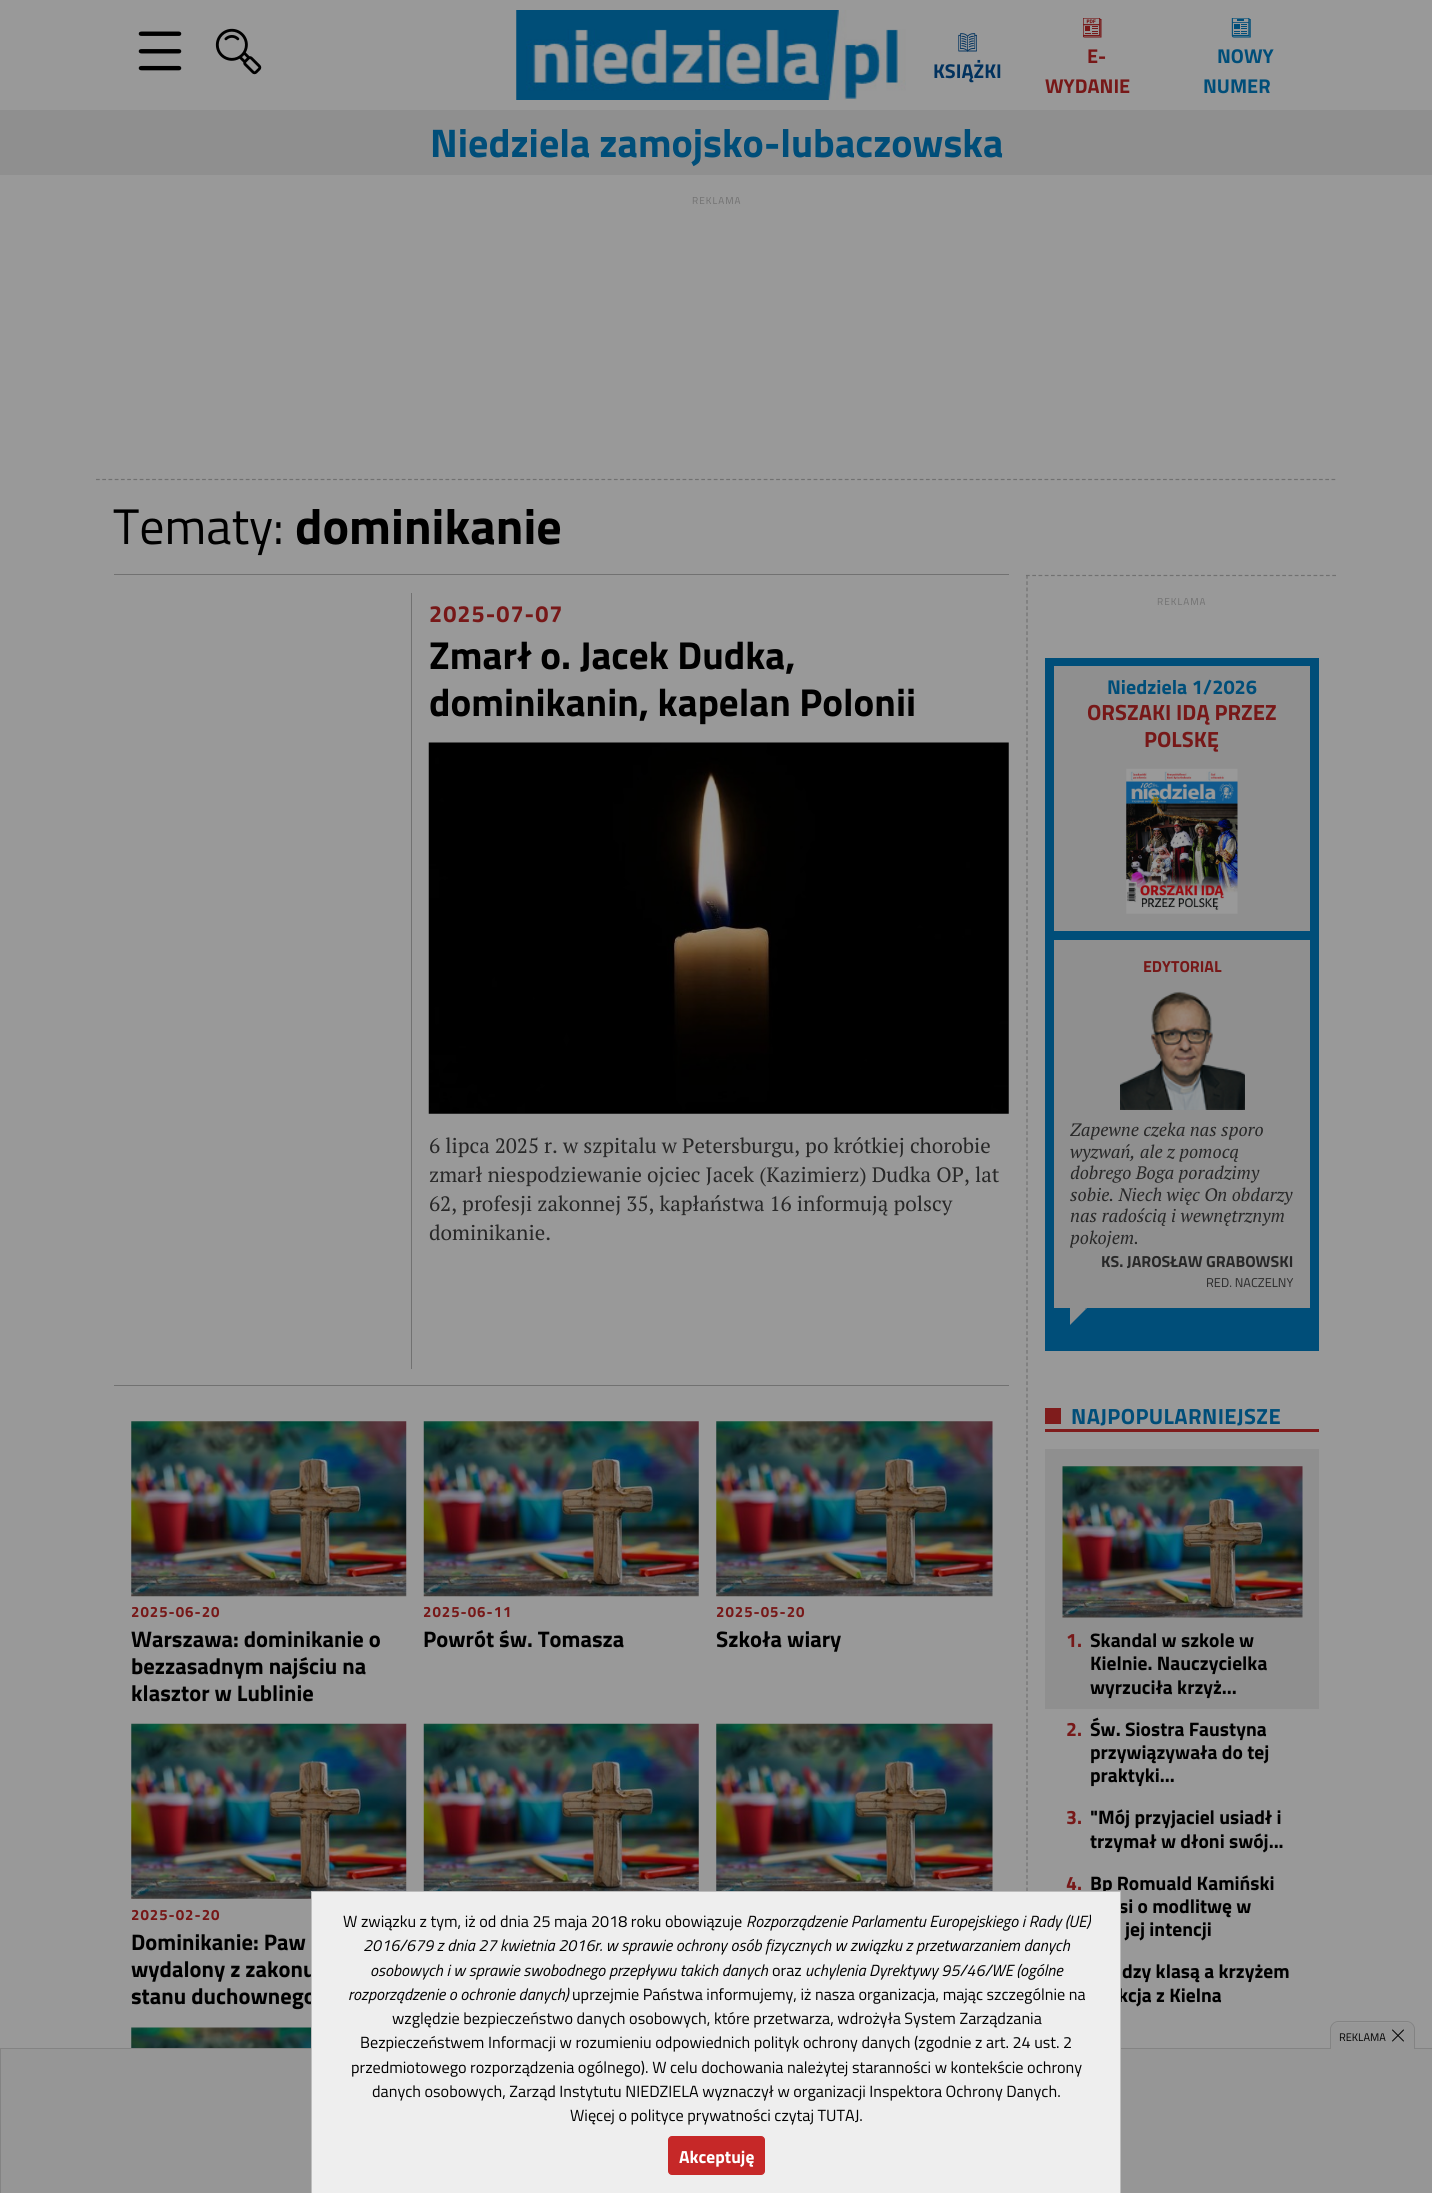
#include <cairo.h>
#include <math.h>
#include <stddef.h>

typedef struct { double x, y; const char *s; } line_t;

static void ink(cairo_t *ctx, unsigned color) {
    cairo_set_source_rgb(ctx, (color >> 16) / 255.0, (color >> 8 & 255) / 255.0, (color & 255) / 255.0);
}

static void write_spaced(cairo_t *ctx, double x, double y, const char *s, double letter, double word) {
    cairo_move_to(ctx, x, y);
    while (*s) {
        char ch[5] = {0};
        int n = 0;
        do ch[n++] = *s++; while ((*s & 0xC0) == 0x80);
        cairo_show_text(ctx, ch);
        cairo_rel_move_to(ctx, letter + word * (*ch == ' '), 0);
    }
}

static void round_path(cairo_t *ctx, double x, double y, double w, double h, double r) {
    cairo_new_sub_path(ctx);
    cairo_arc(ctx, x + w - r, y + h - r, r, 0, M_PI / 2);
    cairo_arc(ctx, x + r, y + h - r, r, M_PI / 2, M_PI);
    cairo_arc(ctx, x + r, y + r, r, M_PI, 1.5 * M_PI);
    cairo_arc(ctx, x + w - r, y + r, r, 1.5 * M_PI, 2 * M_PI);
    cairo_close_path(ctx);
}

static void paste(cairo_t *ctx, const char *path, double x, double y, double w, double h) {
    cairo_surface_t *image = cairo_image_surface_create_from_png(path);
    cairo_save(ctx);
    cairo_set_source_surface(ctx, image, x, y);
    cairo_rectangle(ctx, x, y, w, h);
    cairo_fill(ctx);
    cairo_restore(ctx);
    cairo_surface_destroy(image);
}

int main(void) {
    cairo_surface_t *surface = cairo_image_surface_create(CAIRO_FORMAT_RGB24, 1432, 2193);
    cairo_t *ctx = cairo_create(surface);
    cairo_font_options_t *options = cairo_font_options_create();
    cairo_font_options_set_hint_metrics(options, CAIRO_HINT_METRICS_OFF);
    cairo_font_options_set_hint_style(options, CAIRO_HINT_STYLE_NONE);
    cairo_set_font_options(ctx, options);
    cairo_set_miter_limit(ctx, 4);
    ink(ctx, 0x999999);
    cairo_paint(ctx);
    paste(ctx, "media/1.png", 138, 31, 44, 40);
    paste(ctx, "media/2.png", 215, 28, 47, 47);
    paste(ctx, "media/3.png", 516, 10, 390, 90);
    paste(ctx, "media/4.png", 958, 33, 19, 19);
    cairo_select_font_face(ctx, "Titillium Web", CAIRO_FONT_SLANT_NORMAL, CAIRO_FONT_WEIGHT_BOLD);
    cairo_set_font_size(ctx, 20);
    ink(ctx, 0x01325E);
    cairo_move_to(ctx, 933, 78);
    cairo_show_text(ctx, "KSIĄŻKI");
    paste(ctx, "media/5.png", 1083, 18, 19, 20);
    ink(ctx, 0x771818);
    cairo_move_to(ctx, 1087, 63);
    cairo_show_text(ctx, "E-");
    cairo_move_to(ctx, 1045, 93);
    cairo_show_text(ctx, "WYDANIE");
    paste(ctx, "media/6.png", 1231, 18, 20, 20);
    ink(ctx, 0x004E79);
    cairo_move_to(ctx, 1217, 63);
    cairo_show_text(ctx, "NOWY");
    cairo_move_to(ctx, 1203, 93);
    cairo_show_text(ctx, "NUMER");
    ink(ctx, 0x8F8F8F);
    cairo_rectangle(ctx, 0, 110, 1432, 65);
    cairo_fill(ctx);
    cairo_set_font_size(ctx, 40);
    ink(ctx, 0x004E79);
    cairo_move_to(ctx, 430, 157);
    cairo_show_text(ctx, "Niedziela zamojsko-lubaczowska");
    cairo_select_font_face(ctx, "Titillium Web", CAIRO_FONT_SLANT_NORMAL, CAIRO_FONT_WEIGHT_NORMAL);
    cairo_set_font_size(ctx, 10);
    ink(ctx, 0x717171);
    write_spaced(ctx, 692, 204, "REKLAMA", 1, 0);
    cairo_new_path(ctx);
    cairo_move_to(ctx, 96, 479.5);
    cairo_line_to(ctx, 1336, 479.5);
    cairo_set_line_width(ctx, 1.2);
    cairo_set_dash(ctx, (double[]){3.75, 2.49}, 2, 0);
    cairo_stroke(ctx);
    cairo_rectangle(ctx, 114, 574, 895, 1);
    cairo_fill(ctx);
    cairo_set_font_size(ctx, 50);
    ink(ctx, 0x000000);
    cairo_move_to(ctx, 113, 544);
    cairo_show_text(ctx, "Tematy:");
    cairo_select_font_face(ctx, "Titillium Web", CAIRO_FONT_SLANT_NORMAL, CAIRO_FONT_WEIGHT_BOLD);
    cairo_move_to(ctx, 295, 544);
    cairo_show_text(ctx, "dominikanie");
    ink(ctx, 0x717171);
    cairo_rectangle(ctx, 114, 1385, 895, 1);
    cairo_fill(ctx);
    cairo_rectangle(ctx, 411, 593, 1, 776);
    cairo_fill(ctx);
    cairo_set_font_size(ctx, 23.5);
    ink(ctx, 0x771818);
    write_spaced(ctx, 429, 622, "2025-07-07", 1, 0);
    cairo_set_font_size(ctx, 39);
    ink(ctx, 0x000000);
    cairo_move_to(ctx, 429, 669);
    cairo_show_text(ctx, "Zmarł o. Jacek Dudka,");
    cairo_move_to(ctx, 429, 716);
    cairo_show_text(ctx, "dominikanin, kapelan Polonii");
    paste(ctx, "media/7.png", 428, 742, 581, 372);
    cairo_select_font_face(ctx, "PT Serif", CAIRO_FONT_SLANT_NORMAL, CAIRO_FONT_WEIGHT_NORMAL);
    cairo_set_font_size(ctx, 20.8);
    ink(ctx, 0x282828);
    {
        static const line_t items[] = {
            {429, 1153, "6 lipca 2025 r. w szpitalu w Petersburgu, po krótkiej chorobie"},
            {429, 1182, "zmarł niespodziewanie ojciec Jacek (Kazimierz) Dudka OP, lat"},
            {429, 1211, "62, profesji zakonnej 35, kapłaństwa 16 informują polscy"},
            {429, 1240, "dominikanie."},
        };
        for (size_t i = 0; i < sizeof items / sizeof *items; i++) {
            cairo_move_to(ctx, items[i].x, items[i].y);
            cairo_show_text(ctx, items[i].s);
        }
    }
    paste(ctx, "media/8.png", 131, 1421, 276, 176);
    cairo_select_font_face(ctx, "Titillium Web", CAIRO_FONT_SLANT_NORMAL, CAIRO_FONT_WEIGHT_BOLD);
    cairo_set_font_size(ctx, 15);
    ink(ctx, 0x771818);
    write_spaced(ctx, 131, 1617, "2025-06-20", 1, 0);
    cairo_set_font_size(ctx, 22.5);
    ink(ctx, 0x000000);
    {
        static const line_t items[] = {
            {131, 1647, "Warszawa: dominikanie o"},
            {131, 1674, "bezzasadnym najściu na"},
            {131, 1701, "klasztor w Lublinie"},
        };
        for (size_t i = 0; i < sizeof items / sizeof *items; i++) {
            cairo_move_to(ctx, items[i].x, items[i].y);
            cairo_show_text(ctx, items[i].s);
        }
    }
    paste(ctx, "media/9.png", 423, 1421, 276, 176);
    cairo_set_font_size(ctx, 15);
    ink(ctx, 0x771818);
    write_spaced(ctx, 423, 1617, "2025-06-11", 1, 0);
    cairo_set_font_size(ctx, 22.5);
    ink(ctx, 0x000000);
    cairo_move_to(ctx, 423, 1647);
    cairo_show_text(ctx, "Powrót św. Tomasza");
    paste(ctx, "media/10.png", 716, 1421, 277, 176);
    cairo_set_font_size(ctx, 15);
    ink(ctx, 0x771818);
    write_spaced(ctx, 716, 1617, "2025-05-20", 1, 0);
    cairo_set_font_size(ctx, 22.5);
    ink(ctx, 0x000000);
    cairo_move_to(ctx, 716, 1647);
    cairo_show_text(ctx, "Szkoła wiary");
    paste(ctx, "media/11.png", 423, 1723, 276, 168);
    paste(ctx, "media/12.png", 716, 1723, 277, 168);
    paste(ctx, "media/13.png", 131, 1723, 276, 176);
    cairo_set_font_size(ctx, 15);
    ink(ctx, 0x771818);
    write_spaced(ctx, 131, 1920, "2025-02-20", 1, 0);
    cairo_set_font_size(ctx, 22.5);
    ink(ctx, 0x000000);
    {
        static const line_t items[] = {
            {131, 1950, "Dominikanie: Paw"},
            {131, 1977, "wydalony z zakonu"},
            {131, 2004, "stanu duchownego"},
        };
        for (size_t i = 0; i < sizeof items / sizeof *items; i++) {
            cairo_move_to(ctx, items[i].x, items[i].y);
            cairo_show_text(ctx, items[i].s);
        }
    }
    paste(ctx, "media/14.png", 131, 2027, 180, 21);
    cairo_new_path(ctx);
    cairo_move_to(ctx, 1026, 575.5);
    cairo_line_to(ctx, 1336, 575.5);
    ink(ctx, 0x717171);
    cairo_set_dash(ctx, (double[]){3.75, 2.5}, 2, 0);
    cairo_stroke(ctx);
    cairo_new_path(ctx);
    cairo_move_to(ctx, 1027, 575);
    cairo_line_to(ctx, 1027, 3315);
    cairo_stroke(ctx);
    cairo_select_font_face(ctx, "Titillium Web", CAIRO_FONT_SLANT_NORMAL, CAIRO_FONT_WEIGHT_NORMAL);
    cairo_set_font_size(ctx, 10);
    write_spaced(ctx, 1157, 605, "REKLAMA", 1, 0);
    ink(ctx, 0x004E79);
    cairo_rectangle(ctx, 1045, 658, 274, 693);
    cairo_fill(ctx);
    ink(ctx, 0x8F8F8F);
    cairo_rectangle(ctx, 1054, 666, 256, 265);
    cairo_fill(ctx);
    cairo_select_font_face(ctx, "Titillium Web", CAIRO_FONT_SLANT_NORMAL, CAIRO_FONT_WEIGHT_BOLD);
    cairo_set_font_size(ctx, 20);
    ink(ctx, 0x004E79);
    cairo_move_to(ctx, 1107, 694);
    cairo_show_text(ctx, "Niedziela 1/2026");
    cairo_set_font_size(ctx, 22);
    ink(ctx, 0x771818);
    cairo_move_to(ctx, 1087, 720);
    cairo_show_text(ctx, "ORSZAKI IDĄ PRZEZ");
    cairo_move_to(ctx, 1144, 747);
    cairo_show_text(ctx, "POLSKĘ");
    paste(ctx, "media/15.png", 1126, 768, 112, 146);
    ink(ctx, 0x8F8F8F);
    cairo_rectangle(ctx, 1054, 940, 256, 368);
    cairo_fill(ctx);
    cairo_set_font_size(ctx, 16);
    ink(ctx, 0x771818);
    cairo_move_to(ctx, 1143, 972);
    cairo_show_text(ctx, "EDYTORIAL");
    paste(ctx, "media/16.png", 1120, 991, 125, 119);
    cairo_select_font_face(ctx, "PT Serif", CAIRO_FONT_SLANT_ITALIC, CAIRO_FONT_WEIGHT_NORMAL);
    cairo_set_font_size(ctx, 18);
    ink(ctx, 0x282828);
    {
        static const line_t items[] = {
            {1070, 1136, "Zapewne czeka nas sporo"},
            {1070, 1158, "wyzwań, ale z pomocą"},
            {1070, 1179, "dobrego Boga poradzimy"},
            {1070, 1201, "sobie. Niech więc On obdarzy"},
            {1070, 1222, "nas radością i wewnętrznym"},
            {1070, 1244, "pokojem."},
        };
        for (size_t i = 0; i < sizeof items / sizeof *items; i++) {
            cairo_move_to(ctx, items[i].x, items[i].y);
            cairo_show_text(ctx, items[i].s);
        }
    }
    cairo_select_font_face(ctx, "Titillium Web", CAIRO_FONT_SLANT_NORMAL, CAIRO_FONT_WEIGHT_BOLD);
    cairo_set_font_size(ctx, 16);
    cairo_move_to(ctx, 1101, 1267);
    cairo_show_text(ctx, "KS. JAROSŁAW GRABOWSKI");
    cairo_select_font_face(ctx, "Titillium Web", CAIRO_FONT_SLANT_NORMAL, CAIRO_FONT_WEIGHT_NORMAL);
    cairo_set_font_size(ctx, 12.75);
    cairo_move_to(ctx, 1206, 1287);
    cairo_show_text(ctx, "RED. NACZELNY");
    ink(ctx, 0x8F8F8F);
    cairo_new_path(ctx);
    cairo_move_to(ctx, 1070, 1292.5);
    cairo_line_to(ctx, 1102.5, 1292.5);
    cairo_line_to(ctx, 1086, 1309);
    cairo_close_path(ctx);
    cairo_fill(ctx);
    cairo_new_path(ctx);
    cairo_move_to(ctx, 1070, 1325);
    cairo_line_to(ctx, 1070, 1292.5);
    cairo_line_to(ctx, 1086, 1309);
    cairo_close_path(ctx);
    cairo_fill(ctx);
    ink(ctx, 0x7F1C1C);
    cairo_rectangle(ctx, 1045, 1429, 274, 3);
    cairo_fill(ctx);
    cairo_rectangle(ctx, 1045, 1408, 16, 16);
    cairo_fill(ctx);
    cairo_select_font_face(ctx, "Titillium Web", CAIRO_FONT_SLANT_NORMAL, CAIRO_FONT_WEIGHT_BOLD);
    cairo_set_font_size(ctx, 22);
    ink(ctx, 0x004E79);
    write_spaced(ctx, 1071, 1424, "NAJPOPULARNIEJSZE", 0.4, 0);
    ink(ctx, 0x8F8F8F);
    cairo_rectangle(ctx, 1045, 1449, 274, 260);
    cairo_fill(ctx);
    paste(ctx, "media/17.png", 1062, 1466, 241, 152);
    cairo_set_font_size(ctx, 19.5);
    ink(ctx, 0x771818);
    cairo_move_to(ctx, 1066, 1647);
    cairo_show_text(ctx, "1.");
    ink(ctx, 0x000000);
    {
        static const line_t items[] = {
            {1090, 1647, "Skandal w szkole w"},
            {1090, 1670, "Kielnie. Nauczycielka"},
            {1090, 1694, "wyrzuciła krzyż..."},
        };
        for (size_t i = 0; i < sizeof items / sizeof *items; i++) {
            cairo_move_to(ctx, items[i].x, items[i].y);
            cairo_show_text(ctx, items[i].s);
        }
    }
    ink(ctx, 0x771818);
    cairo_move_to(ctx, 1066, 1736);
    cairo_show_text(ctx, "2.");
    ink(ctx, 0x000000);
    {
        static const line_t items[] = {
            {1090, 1736, "Św. Siostra Faustyna"},
            {1090, 1759, "przywiązywała do tej"},
            {1090, 1782, "praktyki..."},
        };
        for (size_t i = 0; i < sizeof items / sizeof *items; i++) {
            cairo_move_to(ctx, items[i].x, items[i].y);
            cairo_show_text(ctx, items[i].s);
        }
    }
    ink(ctx, 0x771818);
    cairo_move_to(ctx, 1066, 1824);
    cairo_show_text(ctx, "3.");
    ink(ctx, 0x000000);
    cairo_move_to(ctx, 1090, 1824);
    cairo_show_text(ctx, "\"Mój przyjaciel usiadł i");
    cairo_move_to(ctx, 1090, 1848);
    cairo_show_text(ctx, "trzymał w dłoni swój...");
    ink(ctx, 0x771818);
    cairo_move_to(ctx, 1066, 1890);
    cairo_show_text(ctx, "4.");
    ink(ctx, 0x000000);
    {
        static const line_t items[] = {
            {1090, 1890, "Bp Romuald Kamiński"},
            {1119, 1913, "si o modlitwę w"},
            {1125, 1936, "jej intencji"},
            {1122, 1978, "dzy klasą a krzyżem"},
            {1118, 2002, "kcja z Kielna"},
        };
        for (size_t i = 0; i < sizeof items / sizeof *items; i++) {
            cairo_move_to(ctx, items[i].x, items[i].y);
            cairo_show_text(ctx, items[i].s);
        }
    }
    ink(ctx, 0x969696);
    cairo_rectangle(ctx, 0.5, 2048.5, 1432, 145);
    cairo_fill_preserve(ctx);
    ink(ctx, 0x838383);
    cairo_set_line_width(ctx, 1);
    cairo_set_dash(ctx, NULL, 0, 0);
    cairo_stroke(ctx);
    ink(ctx, 0x969696);
    cairo_new_path(ctx);
    cairo_move_to(ctx, 1337, 2023);
    cairo_line_to(ctx, 1408, 2023);
    cairo_curve_to(ctx, 1411.5, 2023, 1414, 2025.5, 1414, 2029);
    cairo_line_to(ctx, 1414, 2049);
    cairo_line_to(ctx, 1331, 2049);
    cairo_line_to(ctx, 1331, 2029);
    cairo_curve_to(ctx, 1331, 2025.5, 1333.5, 2023, 1337, 2023);
    cairo_close_path(ctx);
    cairo_fill(ctx);
    ink(ctx, 0x838383);
    cairo_set_fill_rule(ctx, CAIRO_FILL_RULE_EVEN_ODD);
    cairo_new_path(ctx);
    cairo_move_to(ctx, 1338, 2021);
    cairo_line_to(ctx, 1407, 2021);
    cairo_curve_to(ctx, 1411, 2021, 1415, 2025, 1415, 2029);
    cairo_line_to(ctx, 1415, 2049);
    cairo_line_to(ctx, 1330, 2049);
    cairo_line_to(ctx, 1330, 2029);
    cairo_curve_to(ctx, 1330, 2025, 1334, 2021, 1338, 2021);
    cairo_close_path(ctx);
    cairo_move_to(ctx, 1338, 2022);
    cairo_line_to(ctx, 1407, 2022);
    cairo_curve_to(ctx, 1411, 2022, 1414, 2026, 1414, 2029);
    cairo_line_to(ctx, 1414, 2049);
    cairo_line_to(ctx, 1331, 2049);
    cairo_line_to(ctx, 1331, 2029);
    cairo_curve_to(ctx, 1331, 2026, 1334, 2022, 1338, 2022);
    cairo_close_path(ctx);
    cairo_fill(ctx);
    cairo_select_font_face(ctx, "Titillium Web", CAIRO_FONT_SLANT_NORMAL, CAIRO_FONT_WEIGHT_NORMAL);
    cairo_set_font_size(ctx, 11);
    ink(ctx, 0x000000);
    cairo_move_to(ctx, 1339, 2041);
    cairo_show_text(ctx, "REKLAMA");
    paste(ctx, "media/18.png", 1392, 2029, 12, 13);
    ink(ctx, 0xEEEEEE);
    cairo_rectangle(ctx, 311.5, 1891.5, 809, 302);
    cairo_fill_preserve(ctx);
    ink(ctx, 0xBDBDBD);
    cairo_stroke(ctx);
    cairo_set_font_size(ctx, 16.2);
    ink(ctx, 0x000000);
    cairo_move_to(ctx, 343, 1927);
    cairo_show_text(ctx, "W związku z tym, iż od dnia 25 maja 2018 roku obowiązuje");
    cairo_select_font_face(ctx, "Titillium Web", CAIRO_FONT_SLANT_ITALIC, CAIRO_FONT_WEIGHT_NORMAL);
    {
        static const line_t items[] = {
            {746, 1927, "Rozporządzenie Parlamentu Europejskiego i Rady (UE)"},
            {363, 1951, "2016/679 z dnia 27 kwietnia 2016r. w sprawie ochrony osób fizycznych w związku z przetwarzaniem danych"},
            {370, 1976, "osobowych i w sprawie swobodnego przepływu takich danych"},
        };
        for (size_t i = 0; i < sizeof items / sizeof *items; i++) {
            cairo_move_to(ctx, items[i].x, items[i].y);
            cairo_show_text(ctx, items[i].s);
        }
    }
    cairo_select_font_face(ctx, "Titillium Web", CAIRO_FONT_SLANT_NORMAL, CAIRO_FONT_WEIGHT_NORMAL);
    cairo_move_to(ctx, 772, 1976);
    cairo_show_text(ctx, "oraz");
    cairo_select_font_face(ctx, "Titillium Web", CAIRO_FONT_SLANT_ITALIC, CAIRO_FONT_WEIGHT_NORMAL);
    cairo_move_to(ctx, 805, 1976);
    cairo_show_text(ctx, "uchylenia Dyrektywy 95/46/WE (ogólne");
    cairo_move_to(ctx, 348, 2000);
    cairo_show_text(ctx, "rozporządzenie o ochronie danych)");
    cairo_select_font_face(ctx, "Titillium Web", CAIRO_FONT_SLANT_NORMAL, CAIRO_FONT_WEIGHT_NORMAL);
    {
        static const line_t items[] = {
            {572, 2000, "uprzejmie Państwa informujemy, iż nasza organizacja, mając szczególnie na"},
            {392, 2024, "względzie bezpieczeństwo danych osobowych, które przetwarza, wdrożyła System Zarządzania"},
            {360, 2048, "Bezpieczeństwem Informacji w rozumieniu odpowiednich polityk ochrony danych (zgodnie z art. 24 ust. 2"},
            {351, 2073, "przedmiotowego rozporządzenia ogólnego). W celu dochowania należytej staranności w kontekście ochrony"},
            {372, 2097, "danych osobowych, Zarząd Instytutu NIEDZIELA wyznaczył w organizacji Inspektora Ochrony Danych."},
            {570, 2121, "Więcej o polityce prywatności czytaj TUTAJ."},
        };
        for (size_t i = 0; i < sizeof items / sizeof *items; i++) {
            cairo_move_to(ctx, items[i].x, items[i].y);
            cairo_show_text(ctx, items[i].s);
        }
    }
    ink(ctx, 0xC62828);
    round_path(ctx, 668.5, 2136.5, 96, 38, 3.5);
    cairo_fill_preserve(ctx);
    cairo_stroke(ctx);
    cairo_select_font_face(ctx, "Titillium Web", CAIRO_FONT_SLANT_NORMAL, CAIRO_FONT_WEIGHT_BOLD);
    cairo_set_font_size(ctx, 17.5);
    ink(ctx, 0xFFFFFF);
    cairo_move_to(ctx, 679, 2163);
    cairo_show_text(ctx, "Akceptuję");
    cairo_surface_write_to_png(surface, "image.png");
    cairo_font_options_destroy(options);
    cairo_destroy(ctx);
    cairo_surface_destroy(surface);
    return 0;
}
